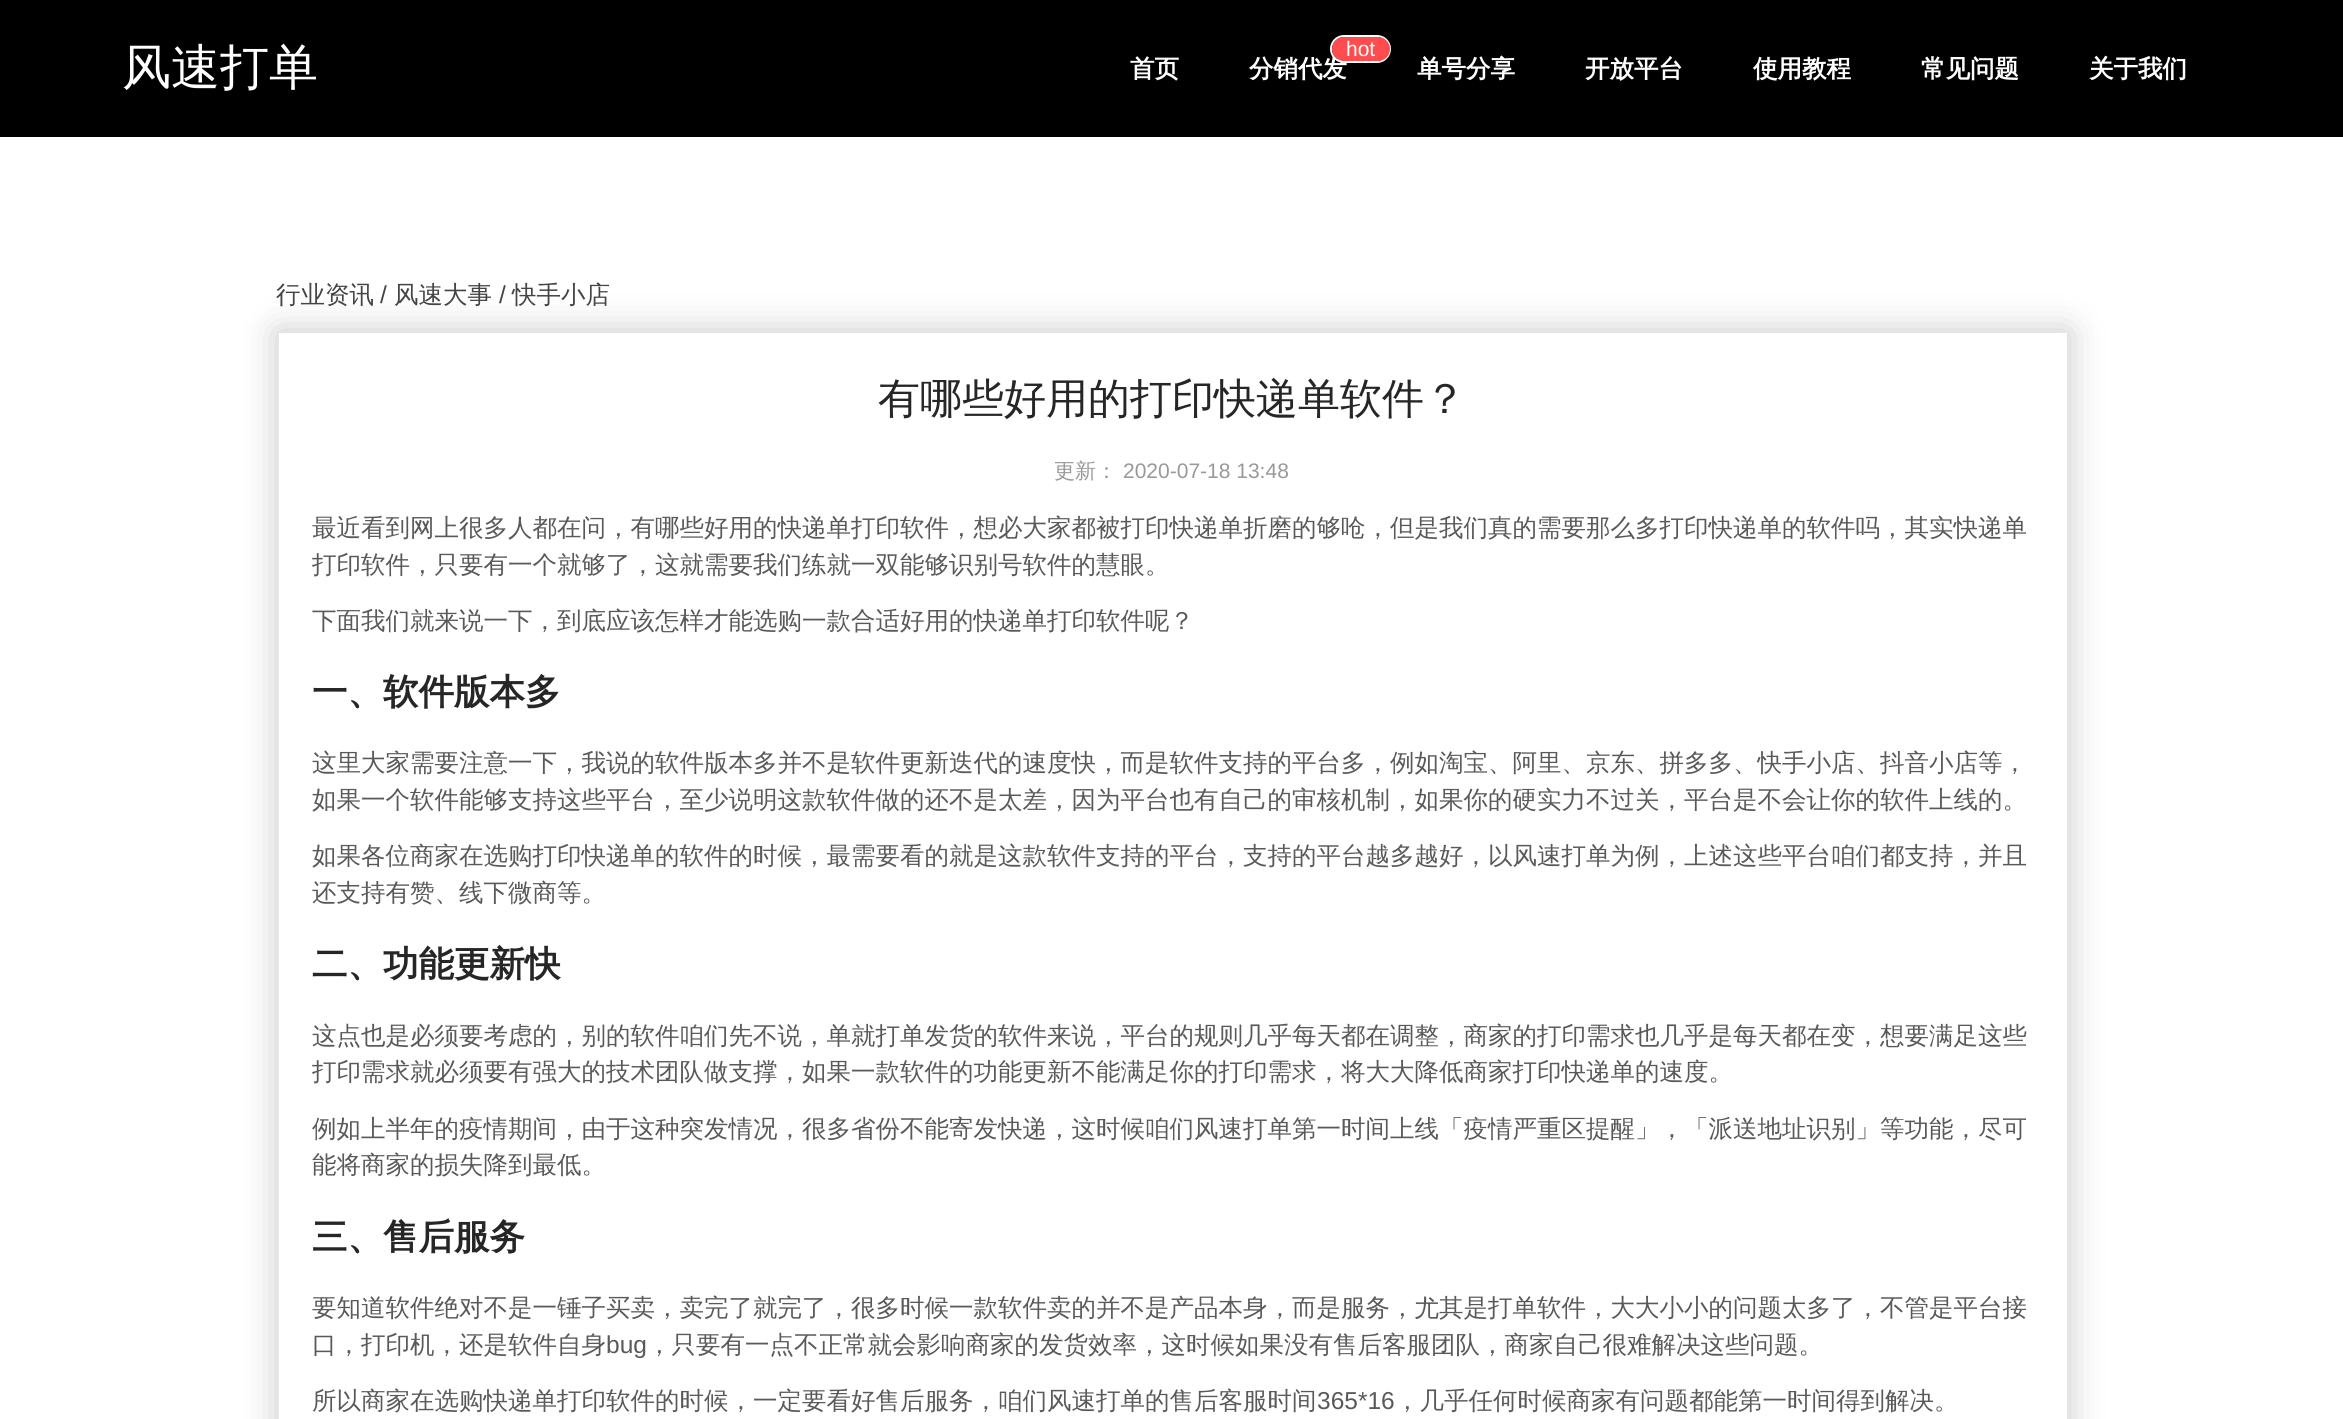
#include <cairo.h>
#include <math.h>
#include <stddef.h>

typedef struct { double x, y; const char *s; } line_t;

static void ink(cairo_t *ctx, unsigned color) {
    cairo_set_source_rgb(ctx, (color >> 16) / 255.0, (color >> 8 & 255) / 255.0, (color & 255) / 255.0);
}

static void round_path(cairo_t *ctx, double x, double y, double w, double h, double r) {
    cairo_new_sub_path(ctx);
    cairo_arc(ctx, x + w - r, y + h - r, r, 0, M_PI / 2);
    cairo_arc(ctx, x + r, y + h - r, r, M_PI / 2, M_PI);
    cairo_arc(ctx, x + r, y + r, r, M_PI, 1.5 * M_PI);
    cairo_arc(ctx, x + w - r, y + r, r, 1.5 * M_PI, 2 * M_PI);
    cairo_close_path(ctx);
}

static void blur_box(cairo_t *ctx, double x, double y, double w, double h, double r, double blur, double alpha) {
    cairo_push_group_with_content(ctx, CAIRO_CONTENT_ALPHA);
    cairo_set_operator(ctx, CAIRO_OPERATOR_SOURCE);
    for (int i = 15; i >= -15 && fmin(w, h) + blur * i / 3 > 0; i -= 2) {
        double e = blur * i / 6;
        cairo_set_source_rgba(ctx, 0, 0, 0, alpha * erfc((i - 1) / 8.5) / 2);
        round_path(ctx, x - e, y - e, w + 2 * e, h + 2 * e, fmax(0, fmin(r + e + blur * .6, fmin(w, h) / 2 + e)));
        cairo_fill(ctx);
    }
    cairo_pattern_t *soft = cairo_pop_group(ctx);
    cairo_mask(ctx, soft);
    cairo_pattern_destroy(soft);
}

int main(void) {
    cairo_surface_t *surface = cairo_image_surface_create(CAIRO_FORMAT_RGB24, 2343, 1419);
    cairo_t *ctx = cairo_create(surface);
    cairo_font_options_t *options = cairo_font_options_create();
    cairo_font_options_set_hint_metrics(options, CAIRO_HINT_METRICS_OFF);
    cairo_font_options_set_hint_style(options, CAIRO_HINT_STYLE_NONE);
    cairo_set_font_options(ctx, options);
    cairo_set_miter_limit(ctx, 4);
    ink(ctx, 0xFFFFFF);
    cairo_paint(ctx);
    ink(ctx, 0x000000);
    cairo_rectangle(ctx, 0, 0, 2343, 137);
    cairo_fill(ctx);
    cairo_select_font_face(ctx, "WenQuanYi Zen Hei Medium", CAIRO_FONT_SLANT_NORMAL, CAIRO_FONT_WEIGHT_NORMAL);
    cairo_set_font_size(ctx, 49);
    ink(ctx, 0xFFFFFF);
    cairo_move_to(ctx, 122, 84);
    cairo_show_text(ctx, "风速打单");
    cairo_select_font_face(ctx, "WenQuanYi Zen Hei", CAIRO_FONT_SLANT_NORMAL, CAIRO_FONT_WEIGHT_BOLD);
    cairo_set_font_size(ctx, 24.5);
    cairo_move_to(ctx, 1130, 77);
    cairo_show_text(ctx, "首页");
    round_path(ctx, 1331, 36, 59, 26, 13);
    cairo_stroke(ctx);
    cairo_move_to(ctx, 1249, 77);
    cairo_show_text(ctx, "分销代发");
    ink(ctx, 0xFF4D4F);
    round_path(ctx, 1332, 37, 58, 24, 12);
    cairo_fill(ctx);
    cairo_select_font_face(ctx, "Liberation Sans", CAIRO_FONT_SLANT_NORMAL, CAIRO_FONT_WEIGHT_NORMAL);
    cairo_set_font_size(ctx, 21);
    ink(ctx, 0xFFFFFF);
    cairo_move_to(ctx, 1346, 56);
    cairo_show_text(ctx, "hot");
    cairo_select_font_face(ctx, "WenQuanYi Zen Hei", CAIRO_FONT_SLANT_NORMAL, CAIRO_FONT_WEIGHT_BOLD);
    cairo_set_font_size(ctx, 24.5);
    {
        static const line_t items[] = {
            {1417, 77, "单号分享"},
            {1585, 77, "开放平台"},
            {1753, 77, "使用教程"},
            {1921, 77, "常见问题"},
            {2089, 77, "关于我们"},
        };
        for (size_t i = 0; i < sizeof items / sizeof *items; i++) {
            cairo_move_to(ctx, items[i].x, items[i].y);
            cairo_show_text(ctx, items[i].s);
        }
    }
    ink(ctx, 0xCCCACA);
    blur_box(ctx, 277, 331, 1792, 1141, 0, 17.5, 1);
    cairo_select_font_face(ctx, "WenQuanYi Zen Hei Medium", CAIRO_FONT_SLANT_NORMAL, CAIRO_FONT_WEIGHT_NORMAL);
    ink(ctx, 0x444444);
    cairo_move_to(ctx, 276, 303);
    cairo_show_text(ctx, "行业资讯");
    cairo_select_font_face(ctx, "Liberation Sans", CAIRO_FONT_SLANT_NORMAL, CAIRO_FONT_WEIGHT_NORMAL);
    cairo_move_to(ctx, 380, 303);
    cairo_show_text(ctx, "/");
    cairo_select_font_face(ctx, "WenQuanYi Zen Hei Medium", CAIRO_FONT_SLANT_NORMAL, CAIRO_FONT_WEIGHT_NORMAL);
    cairo_move_to(ctx, 394, 303);
    cairo_show_text(ctx, "风速大事");
    cairo_select_font_face(ctx, "Liberation Sans", CAIRO_FONT_SLANT_NORMAL, CAIRO_FONT_WEIGHT_NORMAL);
    cairo_move_to(ctx, 499, 303);
    cairo_show_text(ctx, "/");
    cairo_select_font_face(ctx, "WenQuanYi Zen Hei Medium", CAIRO_FONT_SLANT_NORMAL, CAIRO_FONT_WEIGHT_NORMAL);
    cairo_move_to(ctx, 512, 303);
    cairo_show_text(ctx, "快手小店");
    ink(ctx, 0xFFFFFF);
    cairo_rectangle(ctx, 278, 332, 1790, 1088);
    cairo_fill_preserve(ctx);
    ink(ctx, 0xE5E5E9);
    cairo_stroke(ctx);
    cairo_set_font_size(ctx, 42);
    ink(ctx, 0x262626);
    cairo_move_to(ctx, 878, 413);
    cairo_show_text(ctx, "有哪些好用的打印快递单软件？");
    cairo_set_font_size(ctx, 21);
    ink(ctx, 0x999999);
    cairo_move_to(ctx, 1054, 478);
    cairo_show_text(ctx, "更新：");
    cairo_select_font_face(ctx, "Liberation Sans", CAIRO_FONT_SLANT_NORMAL, CAIRO_FONT_WEIGHT_NORMAL);
    cairo_move_to(ctx, 1123, 478);
    cairo_show_text(ctx, "2020-07-18 13:48");
    cairo_select_font_face(ctx, "WenQuanYi Zen Hei Medium", CAIRO_FONT_SLANT_NORMAL, CAIRO_FONT_WEIGHT_NORMAL);
    cairo_set_font_size(ctx, 24.5);
    ink(ctx, 0x595959);
    {
        static const line_t items[] = {
            {312, 536, "最近看到网上很多人都在问，有哪些好用的快递单打印软件，想必大家都被打印快递单折磨的够呛，但是我们真的需要那么多打印快递单的软件吗，其实快递单"},
            {312, 573, "打印软件，只要有一个就够了，这就需要我们练就一双能够识别号软件的慧眼。"},
            {312, 629, "下面我们就来说一下，到底应该怎样才能选购一款合适好用的快递单打印软件呢？"},
        };
        for (size_t i = 0; i < sizeof items / sizeof *items; i++) {
            cairo_move_to(ctx, items[i].x, items[i].y);
            cairo_show_text(ctx, items[i].s);
        }
    }
    cairo_select_font_face(ctx, "WenQuanYi Zen Hei", CAIRO_FONT_SLANT_NORMAL, CAIRO_FONT_WEIGHT_BOLD);
    cairo_set_font_size(ctx, 35.5);
    ink(ctx, 0x262626);
    cairo_move_to(ctx, 312, 704);
    cairo_show_text(ctx, "一、软件版本多");
    cairo_select_font_face(ctx, "WenQuanYi Zen Hei Medium", CAIRO_FONT_SLANT_NORMAL, CAIRO_FONT_WEIGHT_NORMAL);
    cairo_set_font_size(ctx, 24.5);
    ink(ctx, 0x595959);
    {
        static const line_t items[] = {
            {312, 771, "这里大家需要注意一下，我说的软件版本多并不是软件更新迭代的速度快，而是软件支持的平台多，例如淘宝、阿里、京东、拼多多、快手小店、抖音小店等，"},
            {312, 808, "如果一个软件能够支持这些平台，至少说明这款软件做的还不是太差，因为平台也有自己的审核机制，如果你的硬实力不过关，平台是不会让你的软件上线的。"},
            {312, 864, "如果各位商家在选购打印快递单的软件的时候，最需要看的就是这款软件支持的平台，支持的平台越多越好，以风速打单为例，上述这些平台咱们都支持，并且"},
            {312, 901, "还支持有赞、线下微商等。"},
        };
        for (size_t i = 0; i < sizeof items / sizeof *items; i++) {
            cairo_move_to(ctx, items[i].x, items[i].y);
            cairo_show_text(ctx, items[i].s);
        }
    }
    cairo_select_font_face(ctx, "WenQuanYi Zen Hei", CAIRO_FONT_SLANT_NORMAL, CAIRO_FONT_WEIGHT_BOLD);
    cairo_set_font_size(ctx, 35.5);
    ink(ctx, 0x262626);
    cairo_move_to(ctx, 312, 976);
    cairo_show_text(ctx, "二、功能更新快");
    cairo_select_font_face(ctx, "WenQuanYi Zen Hei Medium", CAIRO_FONT_SLANT_NORMAL, CAIRO_FONT_WEIGHT_NORMAL);
    cairo_set_font_size(ctx, 24.5);
    ink(ctx, 0x595959);
    {
        static const line_t items[] = {
            {312, 1044, "这点也是必须要考虑的，别的软件咱们先不说，单就打单发货的软件来说，平台的规则几乎每天都在调整，商家的打印需求也几乎是每天都在变，想要满足这些"},
            {312, 1080, "打印需求就必须要有强大的技术团队做支撑，如果一款软件的功能更新不能满足你的打印需求，将大大降低商家打印快递单的速度。"},
            {312, 1137, "例如上半年的疫情期间，由于这种突发情况，很多省份不能寄发快递，这时候咱们风速打单第一时间上线「疫情严重区提醒」，「派送地址识别」等功能，尽可"},
            {312, 1173, "能将商家的损失降到最低。"},
        };
        for (size_t i = 0; i < sizeof items / sizeof *items; i++) {
            cairo_move_to(ctx, items[i].x, items[i].y);
            cairo_show_text(ctx, items[i].s);
        }
    }
    cairo_select_font_face(ctx, "WenQuanYi Zen Hei", CAIRO_FONT_SLANT_NORMAL, CAIRO_FONT_WEIGHT_BOLD);
    cairo_set_font_size(ctx, 35.5);
    ink(ctx, 0x262626);
    cairo_move_to(ctx, 312, 1249);
    cairo_show_text(ctx, "三、售后服务");
    cairo_select_font_face(ctx, "WenQuanYi Zen Hei Medium", CAIRO_FONT_SLANT_NORMAL, CAIRO_FONT_WEIGHT_NORMAL);
    cairo_set_font_size(ctx, 24.5);
    ink(ctx, 0x595959);
    cairo_move_to(ctx, 312, 1316);
    cairo_show_text(ctx, "要知道软件绝对不是一锤子买卖，卖完了就完了，很多时候一款软件卖的并不是产品本身，而是服务，尤其是打单软件，大大小小的问题太多了，不管是平台接");
    cairo_move_to(ctx, 312, 1353);
    cairo_show_text(ctx, "口，打印机，还是软件自身");
    cairo_select_font_face(ctx, "Liberation Sans", CAIRO_FONT_SLANT_NORMAL, CAIRO_FONT_WEIGHT_NORMAL);
    cairo_move_to(ctx, 606, 1353);
    cairo_show_text(ctx, "bug");
    cairo_select_font_face(ctx, "WenQuanYi Zen Hei Medium", CAIRO_FONT_SLANT_NORMAL, CAIRO_FONT_WEIGHT_NORMAL);
    cairo_move_to(ctx, 647, 1353);
    cairo_show_text(ctx, "，只要有一点不正常就会影响商家的发货效率，这时候如果没有售后客服团队，商家自己很难解决这些问题。");
    cairo_move_to(ctx, 312, 1409);
    cairo_show_text(ctx, "所以商家在选购快递单打印软件的时候，一定要看好售后服务，咱们风速打单的售后客服时间");
    cairo_select_font_face(ctx, "Liberation Sans", CAIRO_FONT_SLANT_NORMAL, CAIRO_FONT_WEIGHT_NORMAL);
    cairo_move_to(ctx, 1317, 1409);
    cairo_show_text(ctx, "365*16");
    cairo_select_font_face(ctx, "WenQuanYi Zen Hei Medium", CAIRO_FONT_SLANT_NORMAL, CAIRO_FONT_WEIGHT_NORMAL);
    cairo_move_to(ctx, 1395, 1409);
    cairo_show_text(ctx, "，几乎任何时候商家有问题都能第一时间得到解决。");
    cairo_surface_write_to_png(surface, "image.png");
    cairo_font_options_destroy(options);
    cairo_destroy(ctx);
    cairo_surface_destroy(surface);
    return 0;
}
